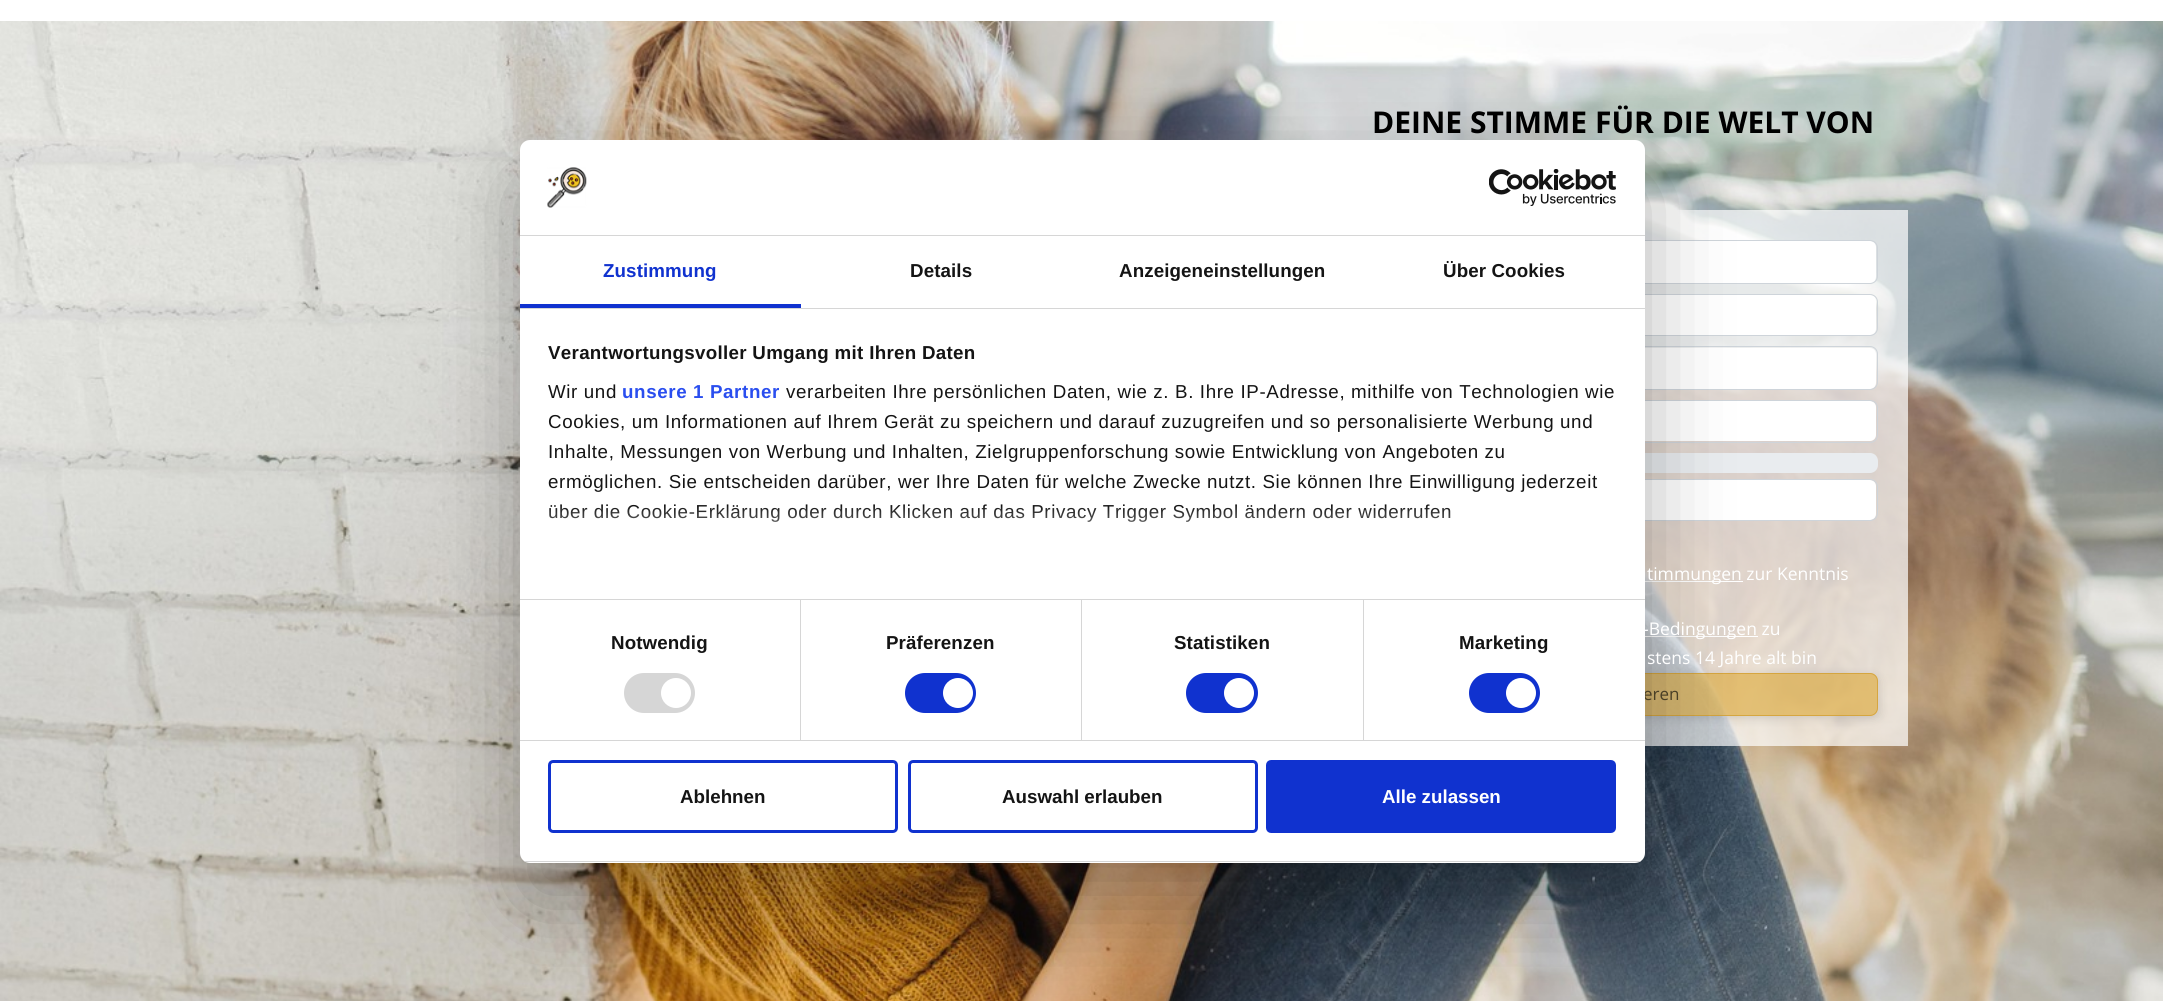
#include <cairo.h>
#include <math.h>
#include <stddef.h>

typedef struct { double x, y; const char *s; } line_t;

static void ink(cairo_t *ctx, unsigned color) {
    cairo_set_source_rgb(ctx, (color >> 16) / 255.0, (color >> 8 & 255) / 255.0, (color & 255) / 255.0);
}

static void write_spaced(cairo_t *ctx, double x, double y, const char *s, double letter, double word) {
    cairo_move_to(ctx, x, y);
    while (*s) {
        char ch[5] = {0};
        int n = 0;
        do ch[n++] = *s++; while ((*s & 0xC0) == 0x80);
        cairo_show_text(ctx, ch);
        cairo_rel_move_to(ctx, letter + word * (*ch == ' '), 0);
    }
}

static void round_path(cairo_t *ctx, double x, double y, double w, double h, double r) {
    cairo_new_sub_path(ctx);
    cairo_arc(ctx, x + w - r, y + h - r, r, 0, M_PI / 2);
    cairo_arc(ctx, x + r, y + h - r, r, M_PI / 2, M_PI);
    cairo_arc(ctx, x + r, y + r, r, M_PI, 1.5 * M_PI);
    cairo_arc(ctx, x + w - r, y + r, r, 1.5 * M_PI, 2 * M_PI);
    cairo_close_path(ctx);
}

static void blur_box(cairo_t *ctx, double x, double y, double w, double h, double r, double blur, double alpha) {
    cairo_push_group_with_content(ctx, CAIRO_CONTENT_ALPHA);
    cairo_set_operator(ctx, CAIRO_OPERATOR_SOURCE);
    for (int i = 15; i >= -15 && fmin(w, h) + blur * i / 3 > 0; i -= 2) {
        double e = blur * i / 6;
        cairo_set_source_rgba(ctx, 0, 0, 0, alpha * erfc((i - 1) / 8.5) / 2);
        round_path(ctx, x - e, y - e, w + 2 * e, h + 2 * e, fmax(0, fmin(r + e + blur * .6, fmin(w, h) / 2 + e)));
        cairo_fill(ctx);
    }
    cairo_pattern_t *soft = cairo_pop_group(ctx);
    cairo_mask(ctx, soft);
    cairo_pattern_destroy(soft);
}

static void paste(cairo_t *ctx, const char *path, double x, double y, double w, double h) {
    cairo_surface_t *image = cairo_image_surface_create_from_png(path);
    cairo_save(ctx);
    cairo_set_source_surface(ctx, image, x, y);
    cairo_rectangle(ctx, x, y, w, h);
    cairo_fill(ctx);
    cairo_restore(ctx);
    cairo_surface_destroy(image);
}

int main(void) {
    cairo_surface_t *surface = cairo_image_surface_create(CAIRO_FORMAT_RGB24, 2163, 1001);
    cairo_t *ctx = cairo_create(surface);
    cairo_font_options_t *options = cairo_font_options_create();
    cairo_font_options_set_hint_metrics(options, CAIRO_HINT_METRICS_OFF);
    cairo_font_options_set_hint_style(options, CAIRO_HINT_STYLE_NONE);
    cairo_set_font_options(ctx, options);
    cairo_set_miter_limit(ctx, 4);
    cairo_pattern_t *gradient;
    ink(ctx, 0xFFFFFF);
    cairo_paint(ctx);
    paste(ctx, "media/3.png", 0, 21, 2163, 980);
    cairo_set_source_rgba(ctx, 1, 1, 1, 0.7);
    cairo_rectangle(ctx, 1645, 210, 263, 536);
    cairo_fill(ctx);
    ink(ctx, 0xFFFFFF);
    round_path(ctx, 1389, 241, 487, 42, 6);
    cairo_fill(ctx);
    round_path(ctx, 1388.5, 240.5, 489, 43, 7.5);
    ink(ctx, 0xCED4DA);
    cairo_set_line_width(ctx, 1);
    cairo_stroke(ctx);
    ink(ctx, 0xFFFFFF);
    round_path(ctx, 1389, 295, 487, 40, 6);
    cairo_fill(ctx);
    round_path(ctx, 1388.5, 294.5, 489, 41, 7.5);
    ink(ctx, 0xCED4DA);
    cairo_stroke(ctx);
    ink(ctx, 0xFFFFFF);
    round_path(ctx, 1389, 348, 487, 41, 6);
    cairo_fill(ctx);
    round_path(ctx, 1388.5, 346.5, 489, 43, 7.5);
    ink(ctx, 0xCED4DA);
    cairo_stroke(ctx);
    ink(ctx, 0xFFFFFF);
    round_path(ctx, 1389, 401, 487, 40, 6);
    cairo_fill(ctx);
    round_path(ctx, 1388.5, 400.5, 489, 42, 7.5);
    ink(ctx, 0xCED4DA);
    cairo_stroke(ctx);
    ink(ctx, 0xE9ECEF);
    round_path(ctx, 1388, 453, 490, 20, 8);
    cairo_fill(ctx);
    ink(ctx, 0xFFFFFF);
    round_path(ctx, 1389, 480, 487, 40, 6);
    cairo_fill(ctx);
    round_path(ctx, 1388.5, 479.5, 489, 41, 7.5);
    ink(ctx, 0xCED4DA);
    cairo_stroke(ctx);
    ink(ctx, 0xFFFFFF);
    cairo_rectangle(ctx, 1645, 581, 98, 1);
    cairo_fill(ctx);
    cairo_rectangle(ctx, 1645, 636, 113, 1);
    cairo_fill(ctx);
    cairo_save(ctx);
    cairo_set_fill_rule(ctx, CAIRO_FILL_RULE_EVEN_ODD);
    cairo_new_path(ctx);
    cairo_move_to(ctx, 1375, 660);
    cairo_line_to(ctx, 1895, 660);
    cairo_line_to(ctx, 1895, 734);
    cairo_line_to(ctx, 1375, 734);
    cairo_close_path(ctx);
    cairo_move_to(ctx, 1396, 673);
    cairo_line_to(ctx, 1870, 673);
    cairo_curve_to(ctx, 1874.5, 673, 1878, 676.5, 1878, 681);
    cairo_line_to(ctx, 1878, 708);
    cairo_curve_to(ctx, 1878, 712.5, 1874.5, 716, 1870, 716);
    cairo_line_to(ctx, 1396, 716);
    cairo_curve_to(ctx, 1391.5, 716, 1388, 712.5, 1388, 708);
    cairo_line_to(ctx, 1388, 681);
    cairo_curve_to(ctx, 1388, 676.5, 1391.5, 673, 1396, 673);
    cairo_close_path(ctx);
    cairo_clip(ctx);
    ink(ctx, 0x000000);
    blur_box(ctx, 1391, 676, 488, 42, 6, 5, 0.13);
    cairo_restore(ctx);
    cairo_set_source_rgba(ctx, 0.867, 0.671, 0.243, 0.65);
    round_path(ctx, 1388, 673, 490, 43, 8);
    cairo_fill(ctx);
    round_path(ctx, 1388.5, 673.5, 489, 42, 7.5);
    cairo_set_source_rgba(ctx, 0.816, 0.604, 0.145, 0.65);
    cairo_stroke(ctx);
    ink(ctx, 0x000000);
    blur_box(ctx, 520, 180, 1125, 723, 10, 42.5, 0.3);
    cairo_select_font_face(ctx, "Open Sans", CAIRO_FONT_SLANT_NORMAL, CAIRO_FONT_WEIGHT_NORMAL);
    cairo_set_font_size(ctx, 17);
    ink(ctx, 0x493F26);
    cairo_move_to(ctx, 1643, 700);
    cairo_show_text(ctx, "eren");
    ink(ctx, 0xFFFFFF);
    round_path(ctx, 520, 140, 1125, 723, 10);
    cairo_fill(ctx);
    ink(ctx, 0xD6D6D6);
    cairo_rectangle(ctx, 520, 235, 1125, 1);
    cairo_fill(ctx);
    paste(ctx, "media/1.png", 547, 167, 40, 41);
    paste(ctx, "media/2.png", 1489, 169, 127, 37);
    cairo_rectangle(ctx, 520, 308, 1125, 1);
    cairo_fill(ctx);
    ink(ctx, 0x1032CF);
    cairo_rectangle(ctx, 520, 304, 281, 4);
    cairo_fill(ctx);
    cairo_select_font_face(ctx, "Liberation Sans", CAIRO_FONT_SLANT_NORMAL, CAIRO_FONT_WEIGHT_BOLD);
    cairo_set_font_size(ctx, 18.75);
    write_spaced(ctx, 603, 277, "Zustimmung", 0.1, 0);
    ink(ctx, 0x141414);
    {
        static const line_t items[] = {
            {910, 277, "Details"},
            {1119, 277, "Anzeigeneinstellungen"},
            {1443, 277, "Über Cookies"},
        };
        for (size_t i = 0; i < sizeof items / sizeof *items; i++) {
            write_spaced(ctx, items[i].x, items[i].y, items[i].s, 0.1, 0);
        }
    }
    ink(ctx, 0xD6D6D6);
    cairo_rectangle(ctx, 520, 599, 1125, 1);
    cairo_fill(ctx);
    ink(ctx, 0x141414);
    write_spaced(ctx, 548, 359, "Verantwortungsvoller Umgang mit Ihren Daten", 0.3, 0);
    cairo_select_font_face(ctx, "Liberation Sans", CAIRO_FONT_SLANT_NORMAL, CAIRO_FONT_WEIGHT_NORMAL);
    write_spaced(ctx, 548, 398, "Wir und", 0.62, 0);
    cairo_select_font_face(ctx, "Liberation Sans", CAIRO_FONT_SLANT_NORMAL, CAIRO_FONT_WEIGHT_BOLD);
    ink(ctx, 0x2A4EEF);
    write_spaced(ctx, 622, 398, "unsere 1 Partner", 0.62, 0);
    cairo_select_font_face(ctx, "Liberation Sans", CAIRO_FONT_SLANT_NORMAL, CAIRO_FONT_WEIGHT_NORMAL);
    ink(ctx, 0x141414);
    {
        static const line_t items[] = {
            {786, 398, "verarbeiten Ihre persönlichen Daten, wie z. B. Ihre IP-Adresse, mithilfe von Technologien wie"},
            {548, 428, "Cookies, um Informationen auf Ihrem Gerät zu speichern und darauf zuzugreifen und so personalisierte Werbung und"},
            {548, 458, "Inhalte, Messungen von Werbung und Inhalten, Zielgruppenforschung sowie Entwicklung von Angeboten zu"},
            {548, 488, "ermöglichen. Sie entscheiden darüber, wer Ihre Daten für welche Zwecke nutzt. Sie können Ihre Einwilligung jederzeit"},
            {548, 518, "über die Cookie-Erklärung oder durch Klicken auf das Privacy Trigger Symbol ändern oder widerrufen"},
        };
        for (size_t i = 0; i < sizeof items / sizeof *items; i++) {
            write_spaced(ctx, items[i].x, items[i].y, items[i].s, 0.62, 0);
        }
    }
    gradient = cairo_pattern_create_linear(1069, 599, 1069, 505);
    cairo_pattern_add_color_stop_rgba(gradient, 0, 1, 1, 1, 1);
    cairo_pattern_add_color_stop_rgba(gradient, 0.5, 1, 1, 1, 0.8);
    cairo_pattern_add_color_stop_rgba(gradient, 1, 1, 1, 1, 0);
    cairo_set_source(ctx, gradient);
    cairo_pattern_destroy(gradient);
    cairo_rectangle(ctx, 548, 506, 902, 16);
    cairo_fill(ctx);
    ink(ctx, 0xD6D6D6);
    cairo_rectangle(ctx, 520, 740, 1125, 1);
    cairo_fill(ctx);
    cairo_rectangle(ctx, 800, 600, 1, 140);
    cairo_fill(ctx);
    cairo_select_font_face(ctx, "Liberation Sans", CAIRO_FONT_SLANT_NORMAL, CAIRO_FONT_WEIGHT_BOLD);
    ink(ctx, 0x141414);
    write_spaced(ctx, 611, 649, "Notwendig", 0.1, 0);
    ink(ctx, 0xD6D6D6);
    round_path(ctx, 624, 673, 71, 40, 20);
    cairo_fill(ctx);
    ink(ctx, 0xFFFFFF);
    cairo_arc(ctx, 676, 693, 15, 0, 2 * M_PI);
    cairo_fill(ctx);
    ink(ctx, 0xD6D6D6);
    cairo_rectangle(ctx, 1081, 600, 1, 140);
    cairo_fill(ctx);
    ink(ctx, 0x141414);
    write_spaced(ctx, 886, 649, "Präferenzen", 0.1, 0);
    ink(ctx, 0x1032CF);
    round_path(ctx, 905, 673, 71, 40, 20);
    cairo_fill(ctx);
    ink(ctx, 0xFFFFFF);
    cairo_arc(ctx, 958, 693, 15, 0, 2 * M_PI);
    cairo_fill(ctx);
    ink(ctx, 0xD6D6D6);
    cairo_rectangle(ctx, 1363, 600, 1, 140);
    cairo_fill(ctx);
    ink(ctx, 0x141414);
    write_spaced(ctx, 1174, 649, "Statistiken", 0.1, 0);
    ink(ctx, 0x1032CF);
    round_path(ctx, 1186, 673, 72, 40, 20);
    cairo_fill(ctx);
    ink(ctx, 0xFFFFFF);
    cairo_arc(ctx, 1239, 693, 15, 0, 2 * M_PI);
    cairo_fill(ctx);
    ink(ctx, 0x141414);
    write_spaced(ctx, 1459, 649, "Marketing", 0.1, 0);
    ink(ctx, 0x1032CF);
    round_path(ctx, 1469, 673, 71, 40, 20);
    cairo_fill(ctx);
    ink(ctx, 0xFFFFFF);
    cairo_arc(ctx, 1521, 693, 15, 0, 2 * M_PI);
    cairo_fill(ctx);
    cairo_save(ctx);
    round_path(ctx, 520, 140, 1125, 723, 10);
    cairo_clip(ctx);
    ink(ctx, 0xD6D6D6);
    cairo_rectangle(ctx, 520, 861, 1125, 1);
    cairo_fill(ctx);
    cairo_restore(ctx);
    round_path(ctx, 549.5, 761.5, 347, 70, 3.5);
    ink(ctx, 0x1032CF);
    cairo_set_line_width(ctx, 3);
    cairo_stroke(ctx);
    ink(ctx, 0x141414);
    cairo_move_to(ctx, 680, 803);
    cairo_show_text(ctx, "Ablehnen");
    round_path(ctx, 909.5, 761.5, 347, 70, 3.5);
    ink(ctx, 0x1032CF);
    cairo_stroke(ctx);
    ink(ctx, 0x141414);
    cairo_move_to(ctx, 1002, 803);
    cairo_show_text(ctx, "Auswahl erlauben");
    ink(ctx, 0x1032CF);
    round_path(ctx, 1267.5, 761.5, 347, 70, 3.5);
    cairo_fill_preserve(ctx);
    cairo_stroke(ctx);
    ink(ctx, 0xFFFFFF);
    cairo_move_to(ctx, 1382, 803);
    cairo_show_text(ctx, "Alle zulassen");
    cairo_select_font_face(ctx, "Open Sans", CAIRO_FONT_SLANT_NORMAL, CAIRO_FONT_WEIGHT_BOLD);
    cairo_set_font_size(ctx, 30);
    ink(ctx, 0x000000);
    cairo_move_to(ctx, 1372, 133);
    cairo_show_text(ctx, "DEINE STIMME FÜR DIE WELT VON");
    cairo_select_font_face(ctx, "Open Sans", CAIRO_FONT_SLANT_NORMAL, CAIRO_FONT_WEIGHT_NORMAL);
    cairo_set_font_size(ctx, 17.5);
    ink(ctx, 0xFFFFFF);
    {
        static const line_t items[] = {
            {1647, 580, "timmungen zur Kenntnis"},
            {1643, 635, "-Bedingungen zu"},
            {1647, 664, "stens 14 Jahre alt bin"},
        };
        for (size_t i = 0; i < sizeof items / sizeof *items; i++) {
            cairo_move_to(ctx, items[i].x, items[i].y);
            cairo_show_text(ctx, items[i].s);
        }
    }
    cairo_surface_write_to_png(surface, "image.png");
    cairo_font_options_destroy(options);
    cairo_destroy(ctx);
    cairo_surface_destroy(surface);
    return 0;
}
